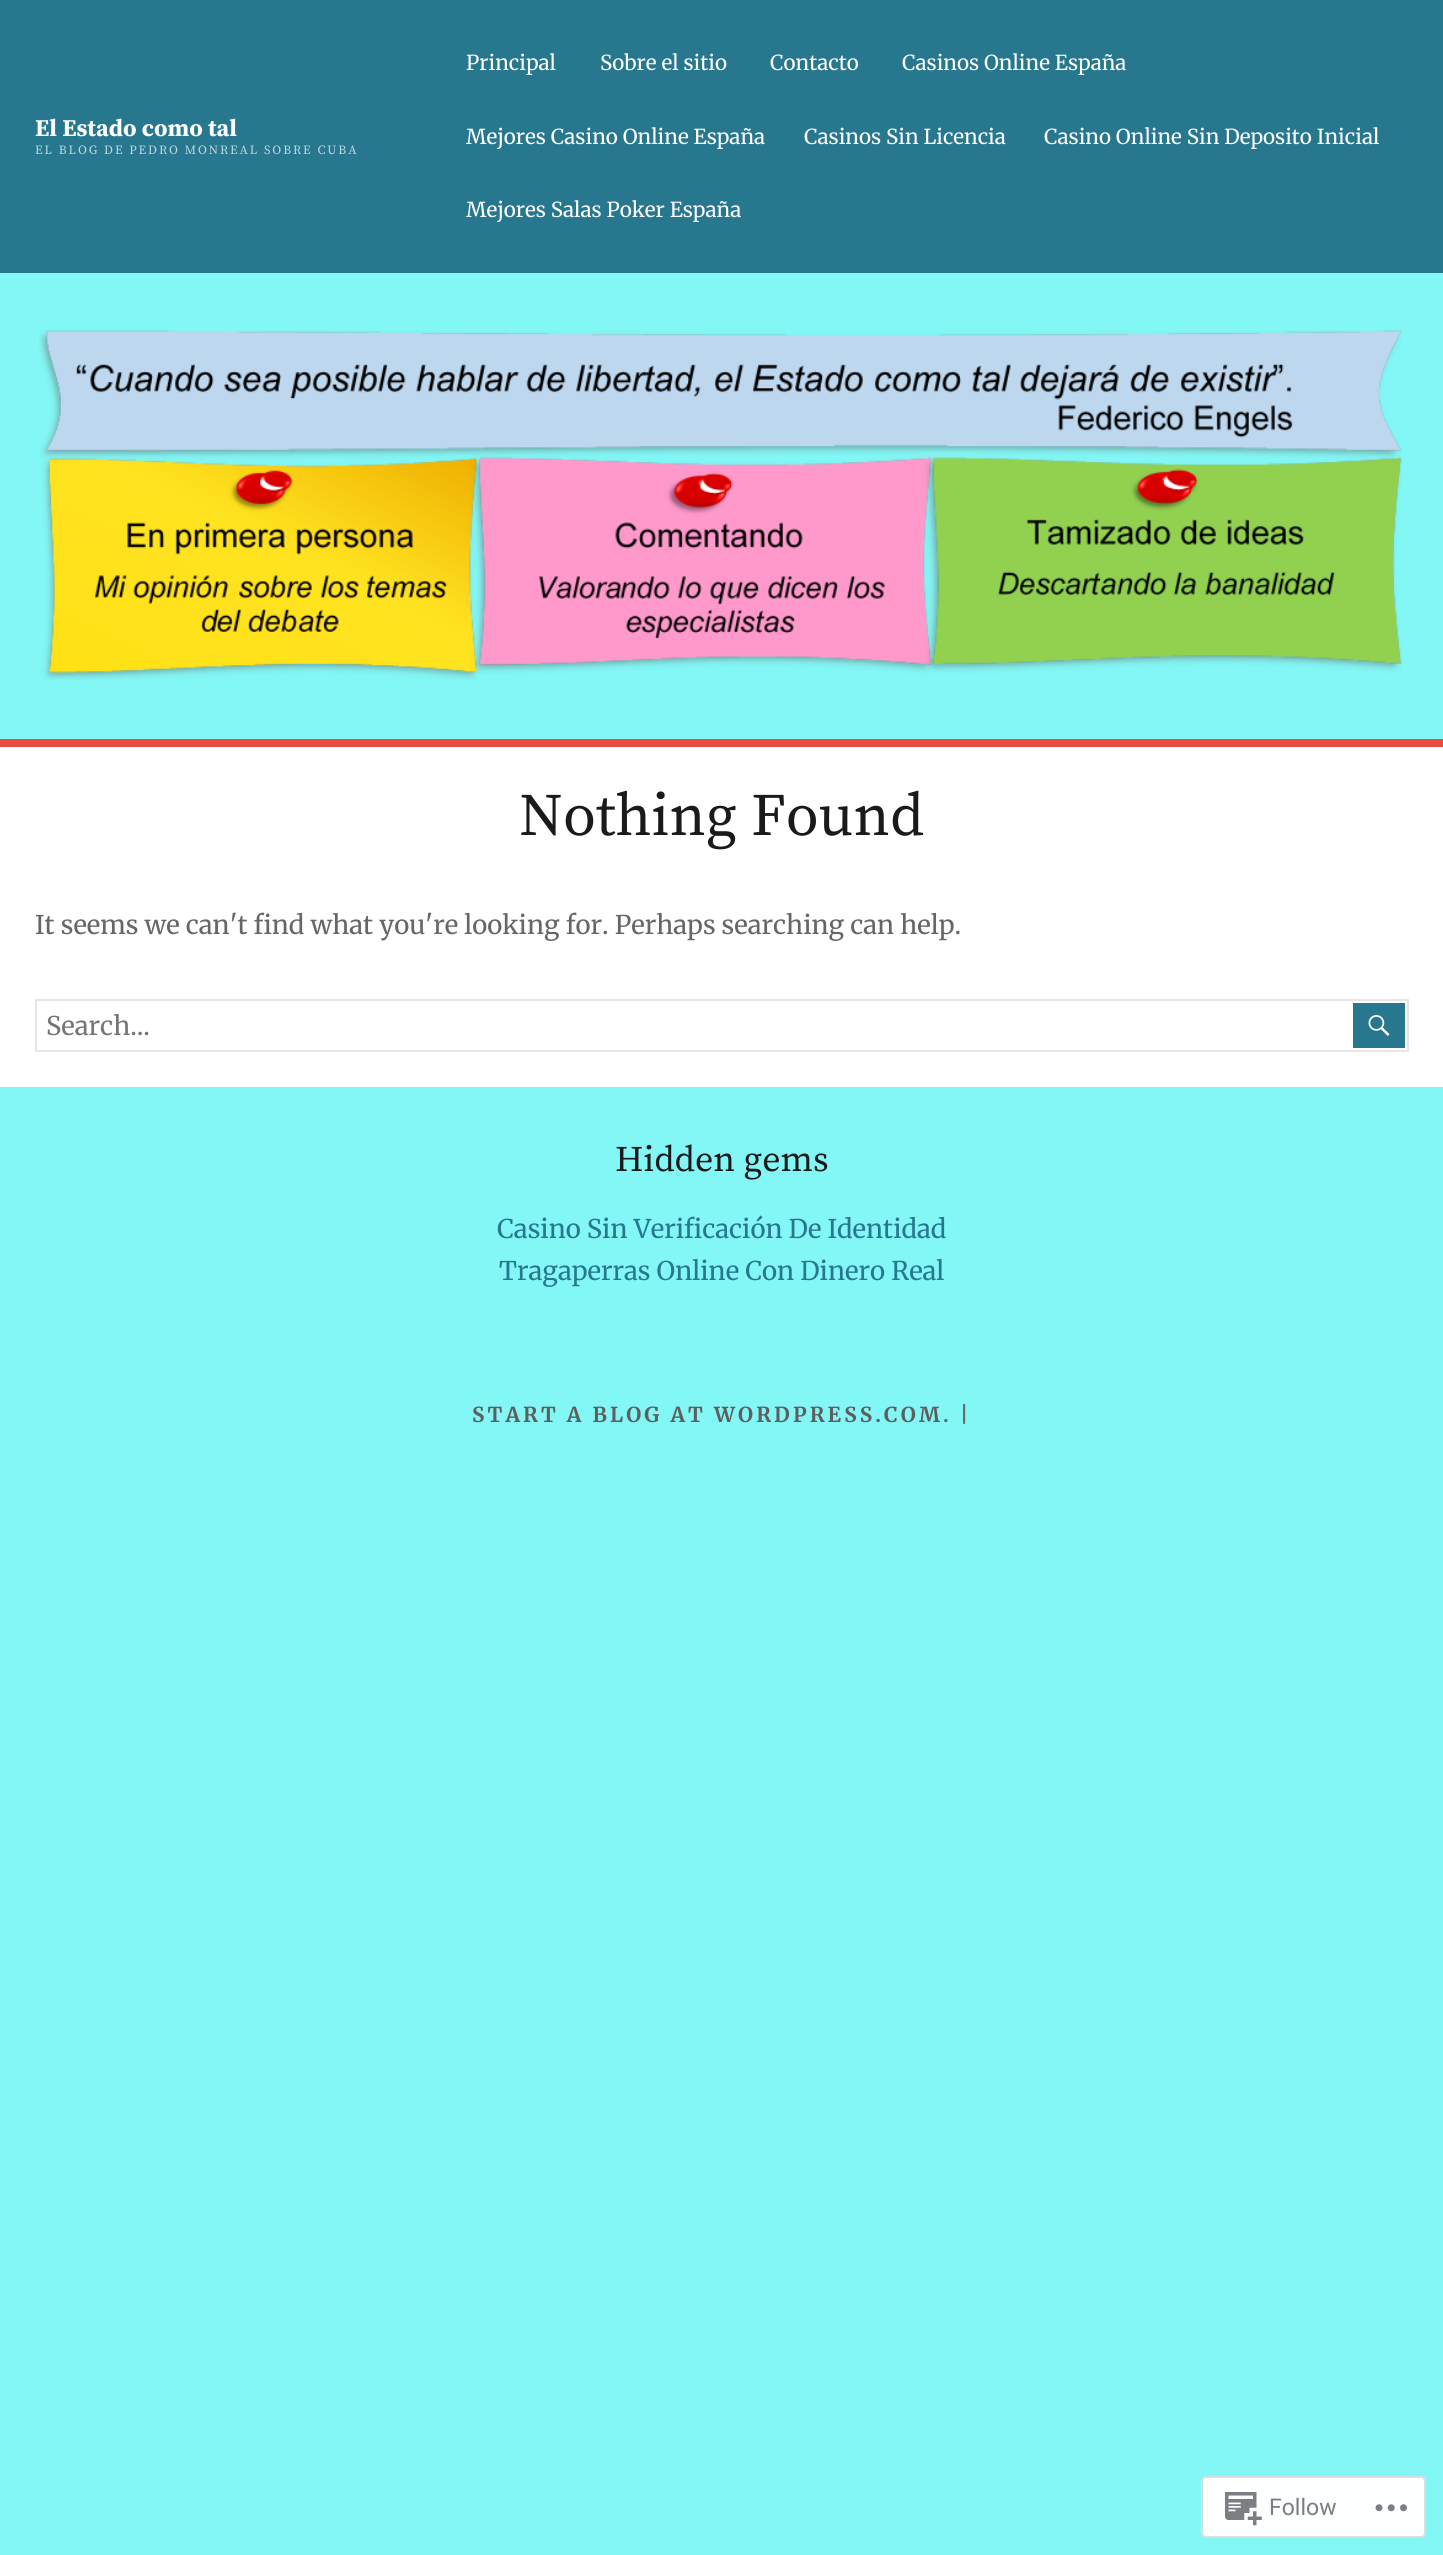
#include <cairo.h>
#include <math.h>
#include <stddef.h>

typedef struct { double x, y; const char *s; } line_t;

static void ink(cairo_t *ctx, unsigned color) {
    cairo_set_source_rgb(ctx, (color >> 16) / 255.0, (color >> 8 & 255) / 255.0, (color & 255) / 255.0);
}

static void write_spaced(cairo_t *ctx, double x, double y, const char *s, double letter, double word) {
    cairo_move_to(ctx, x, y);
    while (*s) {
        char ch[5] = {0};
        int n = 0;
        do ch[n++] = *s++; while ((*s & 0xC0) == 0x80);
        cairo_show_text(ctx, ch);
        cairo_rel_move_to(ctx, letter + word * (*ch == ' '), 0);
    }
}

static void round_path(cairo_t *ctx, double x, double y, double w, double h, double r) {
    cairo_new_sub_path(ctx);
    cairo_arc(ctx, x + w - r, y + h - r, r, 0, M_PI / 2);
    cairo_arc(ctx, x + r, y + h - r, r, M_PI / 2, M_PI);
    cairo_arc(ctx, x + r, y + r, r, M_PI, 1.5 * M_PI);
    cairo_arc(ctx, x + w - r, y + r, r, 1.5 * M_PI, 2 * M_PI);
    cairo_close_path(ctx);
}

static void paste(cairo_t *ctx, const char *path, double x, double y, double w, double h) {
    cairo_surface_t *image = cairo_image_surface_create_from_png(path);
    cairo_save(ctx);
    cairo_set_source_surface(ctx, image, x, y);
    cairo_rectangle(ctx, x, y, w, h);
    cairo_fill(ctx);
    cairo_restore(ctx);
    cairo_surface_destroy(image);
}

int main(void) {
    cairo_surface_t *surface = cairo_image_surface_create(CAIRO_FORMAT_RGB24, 1443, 2555);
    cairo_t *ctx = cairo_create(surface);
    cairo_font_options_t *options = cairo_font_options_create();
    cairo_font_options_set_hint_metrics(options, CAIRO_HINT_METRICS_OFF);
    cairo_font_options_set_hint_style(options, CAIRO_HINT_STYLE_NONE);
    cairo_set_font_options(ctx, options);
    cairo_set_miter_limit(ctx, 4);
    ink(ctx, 0x82F7F5);
    cairo_paint(ctx);
    ink(ctx, 0x27778F);
    cairo_rectangle(ctx, 0, 0, 1443, 273);
    cairo_fill(ctx);
    cairo_select_font_face(ctx, "Source Serif Pro", CAIRO_FONT_SLANT_NORMAL, CAIRO_FONT_WEIGHT_BOLD);
    cairo_set_font_size(ctx, 24);
    ink(ctx, 0xFFFEFF);
    cairo_move_to(ctx, 35, 136);
    cairo_show_text(ctx, "El Estado como tal");
    cairo_select_font_face(ctx, "Source Serif Pro", CAIRO_FONT_SLANT_NORMAL, CAIRO_FONT_WEIGHT_NORMAL);
    cairo_set_font_size(ctx, 12.6);
    ink(ctx, 0xBED6DD);
    write_spaced(ctx, 35, 154, "EL BLOG DE PEDRO MONREAL SOBRE CUBA", 1.9, 0);
    cairo_select_font_face(ctx, "Merriweather", CAIRO_FONT_SLANT_NORMAL, CAIRO_FONT_WEIGHT_NORMAL);
    cairo_set_font_size(ctx, 20.6);
    ink(ctx, 0xFFFEFF);
    {
        static const line_t items[] = {
            {466, 70, "Principal"},
            {600, 70, "Sobre el sitio"},
            {770, 70, "Contacto"},
            {902, 70, "Casinos Online España"},
            {466, 144, "Mejores Casino Online España"},
            {804, 144, "Casinos Sin Licencia"},
            {1044, 144, "Casino Online Sin Deposito Inicial"},
            {466, 217, "Mejores Salas Poker España"},
        };
        for (size_t i = 0; i < sizeof items / sizeof *items; i++) {
            cairo_move_to(ctx, items[i].x, items[i].y);
            cairo_show_text(ctx, items[i].s);
        }
    }
    paste(ctx, "media/1.png", 39, 330, 1363, 350);
    ink(ctx, 0xFFFFFF);
    cairo_rectangle(ctx, 0, 747, 1443, 340);
    cairo_fill(ctx);
    ink(ctx, 0xE74C3C);
    cairo_rectangle(ctx, 0, 739, 1443, 8);
    cairo_fill(ctx);
    cairo_select_font_face(ctx, "Source Serif Pro", CAIRO_FONT_SLANT_NORMAL, CAIRO_FONT_WEIGHT_NORMAL);
    cairo_set_font_size(ctx, 60);
    ink(ctx, 0x1A1A1A);
    cairo_move_to(ctx, 519, 835);
    cairo_show_text(ctx, "Nothing Found");
    cairo_select_font_face(ctx, "Merriweather", CAIRO_FONT_SLANT_NORMAL, CAIRO_FONT_WEIGHT_NORMAL);
    cairo_set_font_size(ctx, 25.75);
    ink(ctx, 0x666666);
    cairo_move_to(ctx, 35, 934);
    cairo_show_text(ctx, "It seems we can't find what you're looking for. Perhaps searching can help.");
    cairo_rectangle(ctx, 36, 1000, 1372, 51);
    ink(ctx, 0xE6E6E6);
    cairo_stroke(ctx);
    ink(ctx, 0x757575);
    cairo_move_to(ctx, 46, 1035);
    cairo_show_text(ctx, "Search...");
    ink(ctx, 0x27778F);
    cairo_rectangle(ctx, 1353, 1003, 52, 45);
    cairo_fill(ctx);
    paste(ctx, "media/2.png", 1368, 1015, 22, 21);
    cairo_select_font_face(ctx, "Source Serif Pro", CAIRO_FONT_SLANT_NORMAL, CAIRO_FONT_WEIGHT_NORMAL);
    cairo_set_font_size(ctx, 36);
    ink(ctx, 0x1A1A1A);
    cairo_move_to(ctx, 615, 1171);
    cairo_show_text(ctx, "Hidden gems");
    cairo_select_font_face(ctx, "Merriweather", CAIRO_FONT_SLANT_NORMAL, CAIRO_FONT_WEIGHT_NORMAL);
    cairo_set_font_size(ctx, 25.75);
    ink(ctx, 0x27778F);
    cairo_move_to(ctx, 497, 1238);
    cairo_show_text(ctx, "Casino Sin Verificación De Identidad");
    cairo_move_to(ctx, 499, 1280);
    cairo_show_text(ctx, "Tragaperras Online Con Dinero Real");
    cairo_select_font_face(ctx, "Merriweather", CAIRO_FONT_SLANT_NORMAL, CAIRO_FONT_WEIGHT_BOLD);
    cairo_set_font_size(ctx, 20.6);
    ink(ctx, 0x5E5E5E);
    write_spaced(ctx, 472, 1422, "START A BLOG AT WORDPRESS.COM", 3.1, 0);
    ink(ctx, 0x666666);
    write_spaced(ctx, 943, 1422, ". |", 3.1, 0);
    ink(ctx, 0xFDFFFF);
    round_path(ctx, 1202, 2477, 223, 60, 4);
    cairo_fill_preserve(ctx);
    ink(ctx, 0xDADDDE);
    cairo_stroke(ctx);
    paste(ctx, "media/3.png", 1225, 2492, 37, 34);
    cairo_select_font_face(ctx, "Roboto", CAIRO_FONT_SLANT_NORMAL, CAIRO_FONT_WEIGHT_NORMAL);
    cairo_set_font_size(ctx, 23);
    ink(ctx, 0x787E84);
    cairo_move_to(ctx, 1269, 2515);
    cairo_show_text(ctx, "Follow");
    paste(ctx, "media/4.png", 1375, 2504, 32, 8);
    cairo_surface_write_to_png(surface, "image.png");
    cairo_font_options_destroy(options);
    cairo_destroy(ctx);
    cairo_surface_destroy(surface);
    return 0;
}
